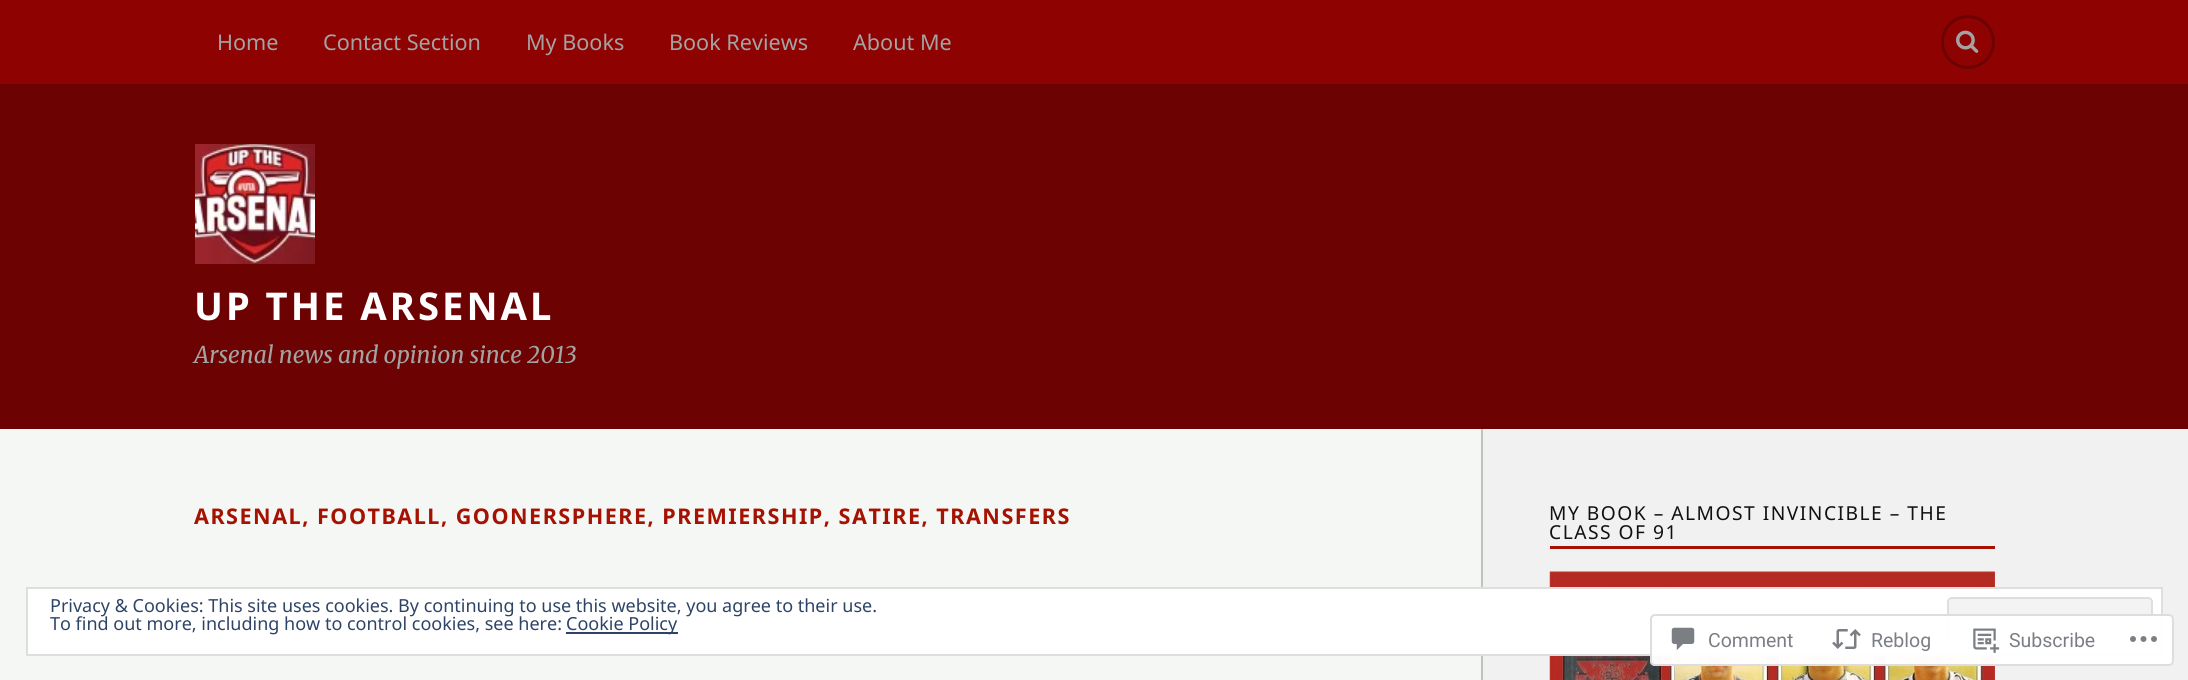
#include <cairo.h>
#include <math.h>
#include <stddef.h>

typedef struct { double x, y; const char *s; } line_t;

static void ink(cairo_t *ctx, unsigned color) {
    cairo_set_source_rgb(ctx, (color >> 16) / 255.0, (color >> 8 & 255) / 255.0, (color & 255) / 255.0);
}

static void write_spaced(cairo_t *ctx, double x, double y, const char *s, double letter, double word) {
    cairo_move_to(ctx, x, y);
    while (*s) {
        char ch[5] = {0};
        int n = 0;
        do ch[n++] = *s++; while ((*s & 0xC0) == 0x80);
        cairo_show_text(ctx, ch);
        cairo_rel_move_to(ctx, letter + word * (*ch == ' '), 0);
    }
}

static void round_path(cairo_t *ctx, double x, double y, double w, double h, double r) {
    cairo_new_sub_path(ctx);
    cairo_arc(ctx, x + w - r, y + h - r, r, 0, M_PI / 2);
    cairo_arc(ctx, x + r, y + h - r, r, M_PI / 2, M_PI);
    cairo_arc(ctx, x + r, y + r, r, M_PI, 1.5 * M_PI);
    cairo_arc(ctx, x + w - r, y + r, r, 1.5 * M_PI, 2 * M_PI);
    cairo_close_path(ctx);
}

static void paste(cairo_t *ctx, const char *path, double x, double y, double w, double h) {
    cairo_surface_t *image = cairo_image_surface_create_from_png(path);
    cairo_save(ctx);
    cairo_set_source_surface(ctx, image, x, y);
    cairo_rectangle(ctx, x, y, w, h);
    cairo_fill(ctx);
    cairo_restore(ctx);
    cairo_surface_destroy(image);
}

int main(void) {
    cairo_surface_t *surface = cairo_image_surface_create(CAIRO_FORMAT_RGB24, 2188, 680);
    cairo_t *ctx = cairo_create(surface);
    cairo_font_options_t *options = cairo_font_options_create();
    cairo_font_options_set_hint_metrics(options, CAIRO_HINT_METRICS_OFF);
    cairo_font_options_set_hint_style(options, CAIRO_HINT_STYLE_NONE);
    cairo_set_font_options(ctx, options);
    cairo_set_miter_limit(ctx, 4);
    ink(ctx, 0xF1F1F1);
    cairo_paint(ctx);
    ink(ctx, 0x8E0202);
    cairo_rectangle(ctx, 0, 0, 2188, 84);
    cairo_fill(ctx);
    cairo_select_font_face(ctx, "Noto Sans", CAIRO_FONT_SLANT_NORMAL, CAIRO_FONT_WEIGHT_NORMAL);
    cairo_set_font_size(ctx, 21.6);
    ink(ctx, 0xA3A3A3);
    {
        static const line_t items[] = {
            {217, 50, "Home"},
            {323, 50, "Contact Section"},
            {526, 50, "My Books"},
            {669, 50, "Book Reviews"},
            {853, 50, "About Me"},
        };
        for (size_t i = 0; i < sizeof items / sizeof *items; i++) {
            cairo_move_to(ctx, items[i].x, items[i].y);
            cairo_show_text(ctx, items[i].s);
        }
    }
    cairo_new_path(ctx);
    cairo_arc(ctx, 1968, 42, 25.5, 0, 2 * M_PI);
    ink(ctx, 0x6D0202);
    cairo_set_line_width(ctx, 3);
    cairo_stroke(ctx);
    paste(ctx, "media/1.png", 1956, 30, 23, 23);
    cairo_rectangle(ctx, 0, 84, 2188, 345);
    cairo_fill(ctx);
    paste(ctx, "media/2.png", 195, 144, 120, 120);
    cairo_select_font_face(ctx, "Noto Sans", CAIRO_FONT_SLANT_NORMAL, CAIRO_FONT_WEIGHT_BOLD);
    cairo_set_font_size(ctx, 38.25);
    ink(ctx, 0xFFFFFF);
    write_spaced(ctx, 194, 320, "UP THE ARSENAL", 3, 0);
    cairo_select_font_face(ctx, "Merriweather Light", CAIRO_FONT_SLANT_ITALIC, CAIRO_FONT_WEIGHT_NORMAL);
    cairo_set_font_size(ctx, 23);
    ink(ctx, 0xA3A3A3);
    cairo_move_to(ctx, 194, 363);
    cairo_show_text(ctx, "Arsenal news and opinion since 2013");
    ink(ctx, 0xF5F7F5);
    cairo_rectangle(ctx, 0, 429, 1481, 251);
    cairo_fill(ctx);
    cairo_select_font_face(ctx, "Noto Sans", CAIRO_FONT_SLANT_NORMAL, CAIRO_FONT_WEIGHT_BOLD);
    cairo_set_font_size(ctx, 21.6);
    ink(ctx, 0xA51202);
    write_spaced(ctx, 194, 524, "ARSENAL, FOOTBALL, GOONERSPHERE, PREMIERSHIP, SATIRE, TRANSFERS", 1.5, 0);
    ink(ctx, 0xC1C1C1);
    cairo_rectangle(ctx, 1481, 429, 2, 251);
    cairo_fill(ctx);
    ink(ctx, 0xA51202);
    cairo_rectangle(ctx, 1550, 546, 445, 3);
    cairo_fill(ctx);
    cairo_select_font_face(ctx, "Noto Sans", CAIRO_FONT_SLANT_NORMAL, CAIRO_FONT_WEIGHT_NORMAL);
    cairo_set_font_size(ctx, 19.2);
    ink(ctx, 0x111111);
    write_spaced(ctx, 1549, 520, "MY BOOK – ALMOST INVINCIBLE – THE", 1.5, 0);
    write_spaced(ctx, 1549, 539, "CLASS OF 91", 1.5, 0);
    paste(ctx, "media/3.png", 1549, 571, 446, 109);
    ink(ctx, 0xFFFFFF);
    cairo_rectangle(ctx, 27, 588, 2135, 67);
    cairo_fill_preserve(ctx);
    ink(ctx, 0xDEDEDE);
    cairo_set_line_width(ctx, 2);
    cairo_stroke(ctx);
    cairo_set_font_size(ctx, 18);
    ink(ctx, 0x2E4467);
    cairo_move_to(ctx, 50, 612);
    cairo_show_text(ctx, "Privacy & Cookies: This site uses cookies. By continuing to use this website, you agree to their use.");
    ink(ctx, 0xF3F3F3);
    round_path(ctx, 1948, 598, 204, 46, 4);
    cairo_fill_preserve(ctx);
    ink(ctx, 0xDEDEDE);
    cairo_stroke(ctx);
    ink(ctx, 0x2E4467);
    cairo_move_to(ctx, 50, 630);
    cairo_show_text(ctx, "To find out more, including how to control cookies, see here:");
    cairo_rectangle(ctx, 566, 632, 112, 2);
    cairo_fill(ctx);
    cairo_move_to(ctx, 566, 630);
    cairo_show_text(ctx, "Cookie Policy");
    cairo_set_source_rgba(ctx, 1, 1, 1, 0.98);
    round_path(ctx, 1650, 614, 524, 52, 5);
    cairo_fill(ctx);
    round_path(ctx, 1651, 615, 522, 50, 4);
    cairo_set_source_rgba(ctx, 0.863, 0.863, 0.871, 0.98);
    cairo_stroke(ctx);
    paste(ctx, "media/4.png", 1671, 627, 24, 24);
    cairo_select_font_face(ctx, "Roboto", CAIRO_FONT_SLANT_NORMAL, CAIRO_FONT_WEIGHT_NORMAL);
    cairo_set_font_size(ctx, 19.5);
    ink(ctx, 0x7B7F85);
    cairo_move_to(ctx, 1708, 647);
    cairo_show_text(ctx, "Comment");
    paste(ctx, "media/5.png", 1832, 629, 29, 20);
    cairo_move_to(ctx, 1871, 647);
    cairo_show_text(ctx, "Reblog");
    paste(ctx, "media/6.png", 1973, 628, 27, 25);
    cairo_move_to(ctx, 2009, 647);
    cairo_show_text(ctx, "Subscribe");
    paste(ctx, "media/7.png", 2130, 636, 27, 6);
    cairo_surface_write_to_png(surface, "image.png");
    cairo_font_options_destroy(options);
    cairo_destroy(ctx);
    cairo_surface_destroy(surface);
    return 0;
}
